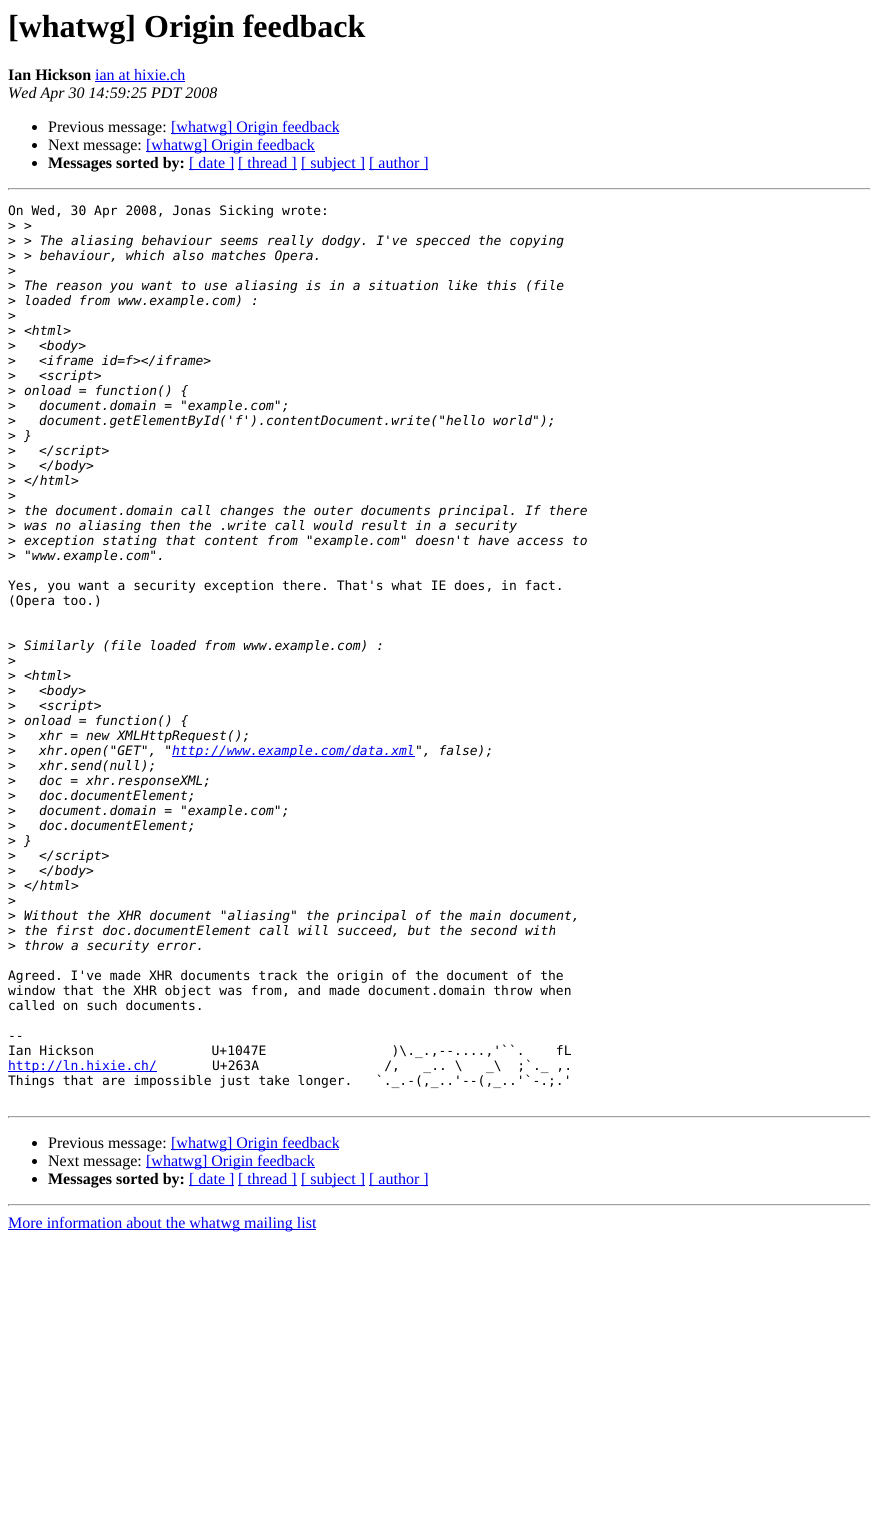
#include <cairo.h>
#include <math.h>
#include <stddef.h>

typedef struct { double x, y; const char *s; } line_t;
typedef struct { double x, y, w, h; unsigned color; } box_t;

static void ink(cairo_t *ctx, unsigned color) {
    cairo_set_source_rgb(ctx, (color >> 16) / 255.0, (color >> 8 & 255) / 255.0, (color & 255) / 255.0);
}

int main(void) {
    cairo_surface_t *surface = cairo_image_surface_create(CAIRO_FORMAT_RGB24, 879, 1524);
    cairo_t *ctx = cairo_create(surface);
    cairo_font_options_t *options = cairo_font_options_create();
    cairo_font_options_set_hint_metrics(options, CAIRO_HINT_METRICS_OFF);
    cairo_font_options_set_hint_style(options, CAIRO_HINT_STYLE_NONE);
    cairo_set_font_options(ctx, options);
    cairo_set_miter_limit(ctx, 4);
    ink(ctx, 0xFFFFFF);
    cairo_paint(ctx);
    cairo_select_font_face(ctx, "Liberation Serif", CAIRO_FONT_SLANT_NORMAL, CAIRO_FONT_WEIGHT_BOLD);
    cairo_set_font_size(ctx, 32);
    ink(ctx, 0x000000);
    cairo_move_to(ctx, 8, 37);
    cairo_show_text(ctx, "[whatwg] Origin feedback");
    cairo_set_font_size(ctx, 16);
    cairo_move_to(ctx, 8, 80);
    cairo_show_text(ctx, "Ian Hickson");
    cairo_select_font_face(ctx, "Liberation Serif", CAIRO_FONT_SLANT_NORMAL, CAIRO_FONT_WEIGHT_NORMAL);
    ink(ctx, 0x0000EE);
    cairo_move_to(ctx, 95, 80);
    cairo_show_text(ctx, "ian at hixie.ch");
    cairo_rectangle(ctx, 95, 81, 90, 1);
    cairo_fill(ctx);
    cairo_select_font_face(ctx, "Liberation Serif", CAIRO_FONT_SLANT_ITALIC, CAIRO_FONT_WEIGHT_NORMAL);
    ink(ctx, 0x000000);
    cairo_move_to(ctx, 8, 98);
    cairo_show_text(ctx, "Wed Apr 30 14:59:25 PDT 2008");
    cairo_new_path(ctx);
    cairo_arc(ctx, 34.5, 127.5, 2.5, 0, 2 * M_PI);
    cairo_fill(ctx);
    cairo_select_font_face(ctx, "Liberation Serif", CAIRO_FONT_SLANT_NORMAL, CAIRO_FONT_WEIGHT_NORMAL);
    cairo_move_to(ctx, 48, 132);
    cairo_show_text(ctx, "Previous message:");
    ink(ctx, 0x0000EE);
    cairo_rectangle(ctx, 171, 133, 168, 1);
    cairo_fill(ctx);
    cairo_move_to(ctx, 171, 132);
    cairo_show_text(ctx, "[whatwg] Origin feedback");
    ink(ctx, 0x000000);
    cairo_new_path(ctx);
    cairo_arc(ctx, 34.5, 145.5, 2.5, 0, 2 * M_PI);
    cairo_fill(ctx);
    cairo_move_to(ctx, 48, 150);
    cairo_show_text(ctx, "Next message:");
    ink(ctx, 0x0000EE);
    cairo_rectangle(ctx, 146, 151, 169, 1);
    cairo_fill(ctx);
    cairo_move_to(ctx, 146, 150);
    cairo_show_text(ctx, "[whatwg] Origin feedback");
    ink(ctx, 0x000000);
    cairo_new_path(ctx);
    cairo_arc(ctx, 34.5, 163.5, 2.5, 0, 2 * M_PI);
    cairo_fill(ctx);
    cairo_select_font_face(ctx, "Liberation Serif", CAIRO_FONT_SLANT_NORMAL, CAIRO_FONT_WEIGHT_BOLD);
    cairo_move_to(ctx, 48, 168);
    cairo_show_text(ctx, "Messages sorted by:");
    ink(ctx, 0x0000EE);
    cairo_rectangle(ctx, 189, 169, 45, 1);
    cairo_fill(ctx);
    cairo_select_font_face(ctx, "Liberation Serif", CAIRO_FONT_SLANT_NORMAL, CAIRO_FONT_WEIGHT_NORMAL);
    cairo_move_to(ctx, 189, 168);
    cairo_show_text(ctx, "[ date ]");
    cairo_rectangle(ctx, 238, 169, 59, 1);
    cairo_fill(ctx);
    cairo_move_to(ctx, 238, 168);
    cairo_show_text(ctx, "[ thread ]");
    cairo_rectangle(ctx, 301, 169, 64, 1);
    cairo_fill(ctx);
    cairo_move_to(ctx, 301, 168);
    cairo_show_text(ctx, "[ subject ]");
    cairo_rectangle(ctx, 369, 169, 59, 1);
    cairo_fill(ctx);
    cairo_move_to(ctx, 369, 168);
    cairo_show_text(ctx, "[ author ]");
    {
        static const box_t items[] = {
            {8, 188, 863, 1, 0x9F9F9F},
            {870, 188, 1, 2, 0xEEEEEE},
            {8, 189, 863, 1, 0xEEEEEE},
            {8, 188, 1, 2, 0x9F9F9F},
        };
        for (size_t i = 0; i < sizeof items / sizeof *items; i++) {
            ink(ctx, items[i].color);
            cairo_rectangle(ctx, items[i].x, items[i].y, items[i].w, items[i].h);
            cairo_fill(ctx);
        }
    }
    cairo_select_font_face(ctx, "DejaVu Sans Mono", CAIRO_FONT_SLANT_NORMAL, CAIRO_FONT_WEIGHT_NORMAL);
    cairo_set_font_size(ctx, 13);
    ink(ctx, 0x000000);
    cairo_move_to(ctx, 8, 215);
    cairo_show_text(ctx, "On Wed, 30 Apr 2008, Jonas Sicking wrote:");
    cairo_move_to(ctx, 8, 230);
    cairo_show_text(ctx, ">");
    cairo_select_font_face(ctx, "DejaVu Sans Mono", CAIRO_FONT_SLANT_ITALIC, CAIRO_FONT_WEIGHT_NORMAL);
    cairo_move_to(ctx, 24, 230);
    cairo_show_text(ctx, ">");
    cairo_select_font_face(ctx, "DejaVu Sans Mono", CAIRO_FONT_SLANT_NORMAL, CAIRO_FONT_WEIGHT_NORMAL);
    cairo_move_to(ctx, 8, 245);
    cairo_show_text(ctx, ">");
    cairo_select_font_face(ctx, "DejaVu Sans Mono", CAIRO_FONT_SLANT_ITALIC, CAIRO_FONT_WEIGHT_NORMAL);
    cairo_move_to(ctx, 24, 245);
    cairo_show_text(ctx, "> The aliasing behaviour seems really dodgy. I've specced the copying");
    cairo_select_font_face(ctx, "DejaVu Sans Mono", CAIRO_FONT_SLANT_NORMAL, CAIRO_FONT_WEIGHT_NORMAL);
    cairo_move_to(ctx, 8, 260);
    cairo_show_text(ctx, ">");
    cairo_select_font_face(ctx, "DejaVu Sans Mono", CAIRO_FONT_SLANT_ITALIC, CAIRO_FONT_WEIGHT_NORMAL);
    cairo_move_to(ctx, 24, 260);
    cairo_show_text(ctx, "> behaviour, which also matches Opera.");
    cairo_select_font_face(ctx, "DejaVu Sans Mono", CAIRO_FONT_SLANT_NORMAL, CAIRO_FONT_WEIGHT_NORMAL);
    cairo_move_to(ctx, 8, 275);
    cairo_show_text(ctx, ">");
    cairo_move_to(ctx, 8, 290);
    cairo_show_text(ctx, ">");
    cairo_select_font_face(ctx, "DejaVu Sans Mono", CAIRO_FONT_SLANT_ITALIC, CAIRO_FONT_WEIGHT_NORMAL);
    cairo_move_to(ctx, 24, 290);
    cairo_show_text(ctx, "The reason you want to use aliasing is in a situation like this (file");
    cairo_select_font_face(ctx, "DejaVu Sans Mono", CAIRO_FONT_SLANT_NORMAL, CAIRO_FONT_WEIGHT_NORMAL);
    cairo_move_to(ctx, 8, 305);
    cairo_show_text(ctx, ">");
    cairo_select_font_face(ctx, "DejaVu Sans Mono", CAIRO_FONT_SLANT_ITALIC, CAIRO_FONT_WEIGHT_NORMAL);
    cairo_move_to(ctx, 24, 305);
    cairo_show_text(ctx, "loaded from www.example.com) :");
    cairo_select_font_face(ctx, "DejaVu Sans Mono", CAIRO_FONT_SLANT_NORMAL, CAIRO_FONT_WEIGHT_NORMAL);
    cairo_move_to(ctx, 8, 320);
    cairo_show_text(ctx, ">");
    cairo_move_to(ctx, 8, 335);
    cairo_show_text(ctx, ">");
    cairo_select_font_face(ctx, "DejaVu Sans Mono", CAIRO_FONT_SLANT_ITALIC, CAIRO_FONT_WEIGHT_NORMAL);
    cairo_move_to(ctx, 24, 335);
    cairo_show_text(ctx, "<html>");
    cairo_select_font_face(ctx, "DejaVu Sans Mono", CAIRO_FONT_SLANT_NORMAL, CAIRO_FONT_WEIGHT_NORMAL);
    cairo_move_to(ctx, 8, 350);
    cairo_show_text(ctx, ">");
    cairo_select_font_face(ctx, "DejaVu Sans Mono", CAIRO_FONT_SLANT_ITALIC, CAIRO_FONT_WEIGHT_NORMAL);
    cairo_move_to(ctx, 39, 350);
    cairo_show_text(ctx, "<body>");
    cairo_select_font_face(ctx, "DejaVu Sans Mono", CAIRO_FONT_SLANT_NORMAL, CAIRO_FONT_WEIGHT_NORMAL);
    cairo_move_to(ctx, 8, 365);
    cairo_show_text(ctx, ">");
    cairo_select_font_face(ctx, "DejaVu Sans Mono", CAIRO_FONT_SLANT_ITALIC, CAIRO_FONT_WEIGHT_NORMAL);
    cairo_move_to(ctx, 39, 365);
    cairo_show_text(ctx, "<iframe id=f></iframe>");
    cairo_select_font_face(ctx, "DejaVu Sans Mono", CAIRO_FONT_SLANT_NORMAL, CAIRO_FONT_WEIGHT_NORMAL);
    cairo_move_to(ctx, 8, 380);
    cairo_show_text(ctx, ">");
    cairo_select_font_face(ctx, "DejaVu Sans Mono", CAIRO_FONT_SLANT_ITALIC, CAIRO_FONT_WEIGHT_NORMAL);
    cairo_move_to(ctx, 39, 380);
    cairo_show_text(ctx, "<script>");
    cairo_select_font_face(ctx, "DejaVu Sans Mono", CAIRO_FONT_SLANT_NORMAL, CAIRO_FONT_WEIGHT_NORMAL);
    cairo_move_to(ctx, 8, 395);
    cairo_show_text(ctx, ">");
    cairo_select_font_face(ctx, "DejaVu Sans Mono", CAIRO_FONT_SLANT_ITALIC, CAIRO_FONT_WEIGHT_NORMAL);
    cairo_move_to(ctx, 24, 395);
    cairo_show_text(ctx, "onload = function() {");
    cairo_select_font_face(ctx, "DejaVu Sans Mono", CAIRO_FONT_SLANT_NORMAL, CAIRO_FONT_WEIGHT_NORMAL);
    cairo_move_to(ctx, 8, 410);
    cairo_show_text(ctx, ">");
    cairo_select_font_face(ctx, "DejaVu Sans Mono", CAIRO_FONT_SLANT_ITALIC, CAIRO_FONT_WEIGHT_NORMAL);
    cairo_move_to(ctx, 39, 410);
    cairo_show_text(ctx, "document.domain = \"example.com\";");
    cairo_select_font_face(ctx, "DejaVu Sans Mono", CAIRO_FONT_SLANT_NORMAL, CAIRO_FONT_WEIGHT_NORMAL);
    cairo_move_to(ctx, 8, 425);
    cairo_show_text(ctx, ">");
    cairo_select_font_face(ctx, "DejaVu Sans Mono", CAIRO_FONT_SLANT_ITALIC, CAIRO_FONT_WEIGHT_NORMAL);
    cairo_move_to(ctx, 39, 425);
    cairo_show_text(ctx, "document.getElementById('f').contentDocument.write(\"hello world\");");
    cairo_select_font_face(ctx, "DejaVu Sans Mono", CAIRO_FONT_SLANT_NORMAL, CAIRO_FONT_WEIGHT_NORMAL);
    cairo_move_to(ctx, 8, 440);
    cairo_show_text(ctx, ">");
    cairo_select_font_face(ctx, "DejaVu Sans Mono", CAIRO_FONT_SLANT_ITALIC, CAIRO_FONT_WEIGHT_NORMAL);
    cairo_move_to(ctx, 24, 440);
    cairo_show_text(ctx, "}");
    cairo_select_font_face(ctx, "DejaVu Sans Mono", CAIRO_FONT_SLANT_NORMAL, CAIRO_FONT_WEIGHT_NORMAL);
    cairo_move_to(ctx, 8, 455);
    cairo_show_text(ctx, ">");
    cairo_select_font_face(ctx, "DejaVu Sans Mono", CAIRO_FONT_SLANT_ITALIC, CAIRO_FONT_WEIGHT_NORMAL);
    cairo_move_to(ctx, 39, 455);
    cairo_show_text(ctx, "</script>");
    cairo_select_font_face(ctx, "DejaVu Sans Mono", CAIRO_FONT_SLANT_NORMAL, CAIRO_FONT_WEIGHT_NORMAL);
    cairo_move_to(ctx, 8, 470);
    cairo_show_text(ctx, ">");
    cairo_select_font_face(ctx, "DejaVu Sans Mono", CAIRO_FONT_SLANT_ITALIC, CAIRO_FONT_WEIGHT_NORMAL);
    cairo_move_to(ctx, 39, 470);
    cairo_show_text(ctx, "</body>");
    cairo_select_font_face(ctx, "DejaVu Sans Mono", CAIRO_FONT_SLANT_NORMAL, CAIRO_FONT_WEIGHT_NORMAL);
    cairo_move_to(ctx, 8, 485);
    cairo_show_text(ctx, ">");
    cairo_select_font_face(ctx, "DejaVu Sans Mono", CAIRO_FONT_SLANT_ITALIC, CAIRO_FONT_WEIGHT_NORMAL);
    cairo_move_to(ctx, 24, 485);
    cairo_show_text(ctx, "</html>");
    cairo_select_font_face(ctx, "DejaVu Sans Mono", CAIRO_FONT_SLANT_NORMAL, CAIRO_FONT_WEIGHT_NORMAL);
    cairo_move_to(ctx, 8, 500);
    cairo_show_text(ctx, ">");
    cairo_move_to(ctx, 8, 515);
    cairo_show_text(ctx, ">");
    cairo_select_font_face(ctx, "DejaVu Sans Mono", CAIRO_FONT_SLANT_ITALIC, CAIRO_FONT_WEIGHT_NORMAL);
    cairo_move_to(ctx, 24, 515);
    cairo_show_text(ctx, "the document.domain call changes the outer documents principal. If there");
    cairo_select_font_face(ctx, "DejaVu Sans Mono", CAIRO_FONT_SLANT_NORMAL, CAIRO_FONT_WEIGHT_NORMAL);
    cairo_move_to(ctx, 8, 530);
    cairo_show_text(ctx, ">");
    cairo_select_font_face(ctx, "DejaVu Sans Mono", CAIRO_FONT_SLANT_ITALIC, CAIRO_FONT_WEIGHT_NORMAL);
    cairo_move_to(ctx, 24, 530);
    cairo_show_text(ctx, "was no aliasing then the .write call would result in a security");
    cairo_select_font_face(ctx, "DejaVu Sans Mono", CAIRO_FONT_SLANT_NORMAL, CAIRO_FONT_WEIGHT_NORMAL);
    cairo_move_to(ctx, 8, 545);
    cairo_show_text(ctx, ">");
    cairo_select_font_face(ctx, "DejaVu Sans Mono", CAIRO_FONT_SLANT_ITALIC, CAIRO_FONT_WEIGHT_NORMAL);
    cairo_move_to(ctx, 24, 545);
    cairo_show_text(ctx, "exception stating that content from \"example.com\" doesn't have access to");
    cairo_select_font_face(ctx, "DejaVu Sans Mono", CAIRO_FONT_SLANT_NORMAL, CAIRO_FONT_WEIGHT_NORMAL);
    cairo_move_to(ctx, 8, 560);
    cairo_show_text(ctx, ">");
    cairo_select_font_face(ctx, "DejaVu Sans Mono", CAIRO_FONT_SLANT_ITALIC, CAIRO_FONT_WEIGHT_NORMAL);
    cairo_move_to(ctx, 24, 560);
    cairo_show_text(ctx, "\"www.example.com\".");
    cairo_select_font_face(ctx, "DejaVu Sans Mono", CAIRO_FONT_SLANT_NORMAL, CAIRO_FONT_WEIGHT_NORMAL);
    {
        static const line_t items[] = {
            {8, 590, "Yes, you want a security exception there. That's what IE does, in fact."},
            {8, 605, "(Opera too.)"},
            {8, 650, ">"},
        };
        for (size_t i = 0; i < sizeof items / sizeof *items; i++) {
            cairo_move_to(ctx, items[i].x, items[i].y);
            cairo_show_text(ctx, items[i].s);
        }
    }
    cairo_select_font_face(ctx, "DejaVu Sans Mono", CAIRO_FONT_SLANT_ITALIC, CAIRO_FONT_WEIGHT_NORMAL);
    cairo_move_to(ctx, 24, 650);
    cairo_show_text(ctx, "Similarly (file loaded from www.example.com) :");
    cairo_select_font_face(ctx, "DejaVu Sans Mono", CAIRO_FONT_SLANT_NORMAL, CAIRO_FONT_WEIGHT_NORMAL);
    cairo_move_to(ctx, 8, 665);
    cairo_show_text(ctx, ">");
    cairo_move_to(ctx, 8, 680);
    cairo_show_text(ctx, ">");
    cairo_select_font_face(ctx, "DejaVu Sans Mono", CAIRO_FONT_SLANT_ITALIC, CAIRO_FONT_WEIGHT_NORMAL);
    cairo_move_to(ctx, 24, 680);
    cairo_show_text(ctx, "<html>");
    cairo_select_font_face(ctx, "DejaVu Sans Mono", CAIRO_FONT_SLANT_NORMAL, CAIRO_FONT_WEIGHT_NORMAL);
    cairo_move_to(ctx, 8, 695);
    cairo_show_text(ctx, ">");
    cairo_select_font_face(ctx, "DejaVu Sans Mono", CAIRO_FONT_SLANT_ITALIC, CAIRO_FONT_WEIGHT_NORMAL);
    cairo_move_to(ctx, 39, 695);
    cairo_show_text(ctx, "<body>");
    cairo_select_font_face(ctx, "DejaVu Sans Mono", CAIRO_FONT_SLANT_NORMAL, CAIRO_FONT_WEIGHT_NORMAL);
    cairo_move_to(ctx, 8, 710);
    cairo_show_text(ctx, ">");
    cairo_select_font_face(ctx, "DejaVu Sans Mono", CAIRO_FONT_SLANT_ITALIC, CAIRO_FONT_WEIGHT_NORMAL);
    cairo_move_to(ctx, 39, 710);
    cairo_show_text(ctx, "<script>");
    cairo_select_font_face(ctx, "DejaVu Sans Mono", CAIRO_FONT_SLANT_NORMAL, CAIRO_FONT_WEIGHT_NORMAL);
    cairo_move_to(ctx, 8, 725);
    cairo_show_text(ctx, ">");
    cairo_select_font_face(ctx, "DejaVu Sans Mono", CAIRO_FONT_SLANT_ITALIC, CAIRO_FONT_WEIGHT_NORMAL);
    cairo_move_to(ctx, 24, 725);
    cairo_show_text(ctx, "onload = function() {");
    cairo_select_font_face(ctx, "DejaVu Sans Mono", CAIRO_FONT_SLANT_NORMAL, CAIRO_FONT_WEIGHT_NORMAL);
    cairo_move_to(ctx, 8, 740);
    cairo_show_text(ctx, ">");
    cairo_select_font_face(ctx, "DejaVu Sans Mono", CAIRO_FONT_SLANT_ITALIC, CAIRO_FONT_WEIGHT_NORMAL);
    cairo_move_to(ctx, 39, 740);
    cairo_show_text(ctx, "xhr = new XMLHttpRequest();");
    cairo_select_font_face(ctx, "DejaVu Sans Mono", CAIRO_FONT_SLANT_NORMAL, CAIRO_FONT_WEIGHT_NORMAL);
    cairo_move_to(ctx, 8, 755);
    cairo_show_text(ctx, ">");
    cairo_select_font_face(ctx, "DejaVu Sans Mono", CAIRO_FONT_SLANT_ITALIC, CAIRO_FONT_WEIGHT_NORMAL);
    cairo_move_to(ctx, 39, 755);
    cairo_show_text(ctx, "xhr.open(\"GET\", \"");
    ink(ctx, 0x0000EE);
    cairo_rectangle(ctx, 172, 756, 243, 1);
    cairo_fill(ctx);
    cairo_move_to(ctx, 172, 755);
    cairo_show_text(ctx, "http://www.example.com/data.xml");
    ink(ctx, 0x000000);
    cairo_move_to(ctx, 415, 755);
    cairo_show_text(ctx, "\", false);");
    cairo_select_font_face(ctx, "DejaVu Sans Mono", CAIRO_FONT_SLANT_NORMAL, CAIRO_FONT_WEIGHT_NORMAL);
    cairo_move_to(ctx, 8, 770);
    cairo_show_text(ctx, ">");
    cairo_select_font_face(ctx, "DejaVu Sans Mono", CAIRO_FONT_SLANT_ITALIC, CAIRO_FONT_WEIGHT_NORMAL);
    cairo_move_to(ctx, 39, 770);
    cairo_show_text(ctx, "xhr.send(null);");
    cairo_select_font_face(ctx, "DejaVu Sans Mono", CAIRO_FONT_SLANT_NORMAL, CAIRO_FONT_WEIGHT_NORMAL);
    cairo_move_to(ctx, 8, 785);
    cairo_show_text(ctx, ">");
    cairo_select_font_face(ctx, "DejaVu Sans Mono", CAIRO_FONT_SLANT_ITALIC, CAIRO_FONT_WEIGHT_NORMAL);
    cairo_move_to(ctx, 39, 785);
    cairo_show_text(ctx, "doc = xhr.responseXML;");
    cairo_select_font_face(ctx, "DejaVu Sans Mono", CAIRO_FONT_SLANT_NORMAL, CAIRO_FONT_WEIGHT_NORMAL);
    cairo_move_to(ctx, 8, 800);
    cairo_show_text(ctx, ">");
    cairo_select_font_face(ctx, "DejaVu Sans Mono", CAIRO_FONT_SLANT_ITALIC, CAIRO_FONT_WEIGHT_NORMAL);
    cairo_move_to(ctx, 39, 800);
    cairo_show_text(ctx, "doc.documentElement;");
    cairo_select_font_face(ctx, "DejaVu Sans Mono", CAIRO_FONT_SLANT_NORMAL, CAIRO_FONT_WEIGHT_NORMAL);
    cairo_move_to(ctx, 8, 815);
    cairo_show_text(ctx, ">");
    cairo_select_font_face(ctx, "DejaVu Sans Mono", CAIRO_FONT_SLANT_ITALIC, CAIRO_FONT_WEIGHT_NORMAL);
    cairo_move_to(ctx, 39, 815);
    cairo_show_text(ctx, "document.domain = \"example.com\";");
    cairo_select_font_face(ctx, "DejaVu Sans Mono", CAIRO_FONT_SLANT_NORMAL, CAIRO_FONT_WEIGHT_NORMAL);
    cairo_move_to(ctx, 8, 830);
    cairo_show_text(ctx, ">");
    cairo_select_font_face(ctx, "DejaVu Sans Mono", CAIRO_FONT_SLANT_ITALIC, CAIRO_FONT_WEIGHT_NORMAL);
    cairo_move_to(ctx, 39, 830);
    cairo_show_text(ctx, "doc.documentElement;");
    cairo_select_font_face(ctx, "DejaVu Sans Mono", CAIRO_FONT_SLANT_NORMAL, CAIRO_FONT_WEIGHT_NORMAL);
    cairo_move_to(ctx, 8, 845);
    cairo_show_text(ctx, ">");
    cairo_select_font_face(ctx, "DejaVu Sans Mono", CAIRO_FONT_SLANT_ITALIC, CAIRO_FONT_WEIGHT_NORMAL);
    cairo_move_to(ctx, 24, 845);
    cairo_show_text(ctx, "}");
    cairo_select_font_face(ctx, "DejaVu Sans Mono", CAIRO_FONT_SLANT_NORMAL, CAIRO_FONT_WEIGHT_NORMAL);
    cairo_move_to(ctx, 8, 860);
    cairo_show_text(ctx, ">");
    cairo_select_font_face(ctx, "DejaVu Sans Mono", CAIRO_FONT_SLANT_ITALIC, CAIRO_FONT_WEIGHT_NORMAL);
    cairo_move_to(ctx, 39, 860);
    cairo_show_text(ctx, "</script>");
    cairo_select_font_face(ctx, "DejaVu Sans Mono", CAIRO_FONT_SLANT_NORMAL, CAIRO_FONT_WEIGHT_NORMAL);
    cairo_move_to(ctx, 8, 875);
    cairo_show_text(ctx, ">");
    cairo_select_font_face(ctx, "DejaVu Sans Mono", CAIRO_FONT_SLANT_ITALIC, CAIRO_FONT_WEIGHT_NORMAL);
    cairo_move_to(ctx, 39, 875);
    cairo_show_text(ctx, "</body>");
    cairo_select_font_face(ctx, "DejaVu Sans Mono", CAIRO_FONT_SLANT_NORMAL, CAIRO_FONT_WEIGHT_NORMAL);
    cairo_move_to(ctx, 8, 890);
    cairo_show_text(ctx, ">");
    cairo_select_font_face(ctx, "DejaVu Sans Mono", CAIRO_FONT_SLANT_ITALIC, CAIRO_FONT_WEIGHT_NORMAL);
    cairo_move_to(ctx, 24, 890);
    cairo_show_text(ctx, "</html>");
    cairo_select_font_face(ctx, "DejaVu Sans Mono", CAIRO_FONT_SLANT_NORMAL, CAIRO_FONT_WEIGHT_NORMAL);
    cairo_move_to(ctx, 8, 905);
    cairo_show_text(ctx, ">");
    cairo_move_to(ctx, 8, 920);
    cairo_show_text(ctx, ">");
    cairo_select_font_face(ctx, "DejaVu Sans Mono", CAIRO_FONT_SLANT_ITALIC, CAIRO_FONT_WEIGHT_NORMAL);
    cairo_move_to(ctx, 24, 920);
    cairo_show_text(ctx, "Without the XHR document \"aliasing\" the principal of the main document,");
    cairo_select_font_face(ctx, "DejaVu Sans Mono", CAIRO_FONT_SLANT_NORMAL, CAIRO_FONT_WEIGHT_NORMAL);
    cairo_move_to(ctx, 8, 935);
    cairo_show_text(ctx, ">");
    cairo_select_font_face(ctx, "DejaVu Sans Mono", CAIRO_FONT_SLANT_ITALIC, CAIRO_FONT_WEIGHT_NORMAL);
    cairo_move_to(ctx, 24, 935);
    cairo_show_text(ctx, "the first doc.documentElement call will succeed, but the second with");
    cairo_select_font_face(ctx, "DejaVu Sans Mono", CAIRO_FONT_SLANT_NORMAL, CAIRO_FONT_WEIGHT_NORMAL);
    cairo_move_to(ctx, 8, 950);
    cairo_show_text(ctx, ">");
    cairo_select_font_face(ctx, "DejaVu Sans Mono", CAIRO_FONT_SLANT_ITALIC, CAIRO_FONT_WEIGHT_NORMAL);
    cairo_move_to(ctx, 24, 950);
    cairo_show_text(ctx, "throw a security error.");
    cairo_select_font_face(ctx, "DejaVu Sans Mono", CAIRO_FONT_SLANT_NORMAL, CAIRO_FONT_WEIGHT_NORMAL);
    {
        static const line_t items[] = {
            {8, 980, "Agreed. I've made XHR documents track the origin of the document of the"},
            {8, 995, "window that the XHR object was from, and made document.domain throw when"},
            {8, 1010, "called on such documents."},
            {8, 1040, "--"},
            {8, 1055, "Ian Hickson               U+1047E                )\\._.,--....,'``.    fL"},
        };
        for (size_t i = 0; i < sizeof items / sizeof *items; i++) {
            cairo_move_to(ctx, items[i].x, items[i].y);
            cairo_show_text(ctx, items[i].s);
        }
    }
    ink(ctx, 0x0000EE);
    cairo_rectangle(ctx, 8, 1071, 149, 1);
    cairo_fill(ctx);
    cairo_move_to(ctx, 8, 1070);
    cairo_show_text(ctx, "http://ln.hixie.ch/");
    ink(ctx, 0x000000);
    cairo_move_to(ctx, 212, 1070);
    cairo_show_text(ctx, "U+263A                /,   _.. \\   _\\  ;`._ ,.");
    cairo_move_to(ctx, 8, 1085);
    cairo_show_text(ctx, "Things that are impossible just take longer.   `._.-(,_..'--(,_..'`-.;.'");
    {
        static const box_t items[] = {
            {8, 1116, 863, 1, 0x9F9F9F},
            {870, 1116, 1, 2, 0xEEEEEE},
            {8, 1117, 863, 1, 0xEEEEEE},
            {8, 1116, 1, 2, 0x9F9F9F},
        };
        for (size_t i = 0; i < sizeof items / sizeof *items; i++) {
            ink(ctx, items[i].color);
            cairo_rectangle(ctx, items[i].x, items[i].y, items[i].w, items[i].h);
            cairo_fill(ctx);
        }
    }
    ink(ctx, 0x000000);
    cairo_new_path(ctx);
    cairo_arc(ctx, 34.5, 1143.5, 2.5, 0, 2 * M_PI);
    cairo_fill(ctx);
    cairo_select_font_face(ctx, "Liberation Serif", CAIRO_FONT_SLANT_NORMAL, CAIRO_FONT_WEIGHT_NORMAL);
    cairo_set_font_size(ctx, 16);
    cairo_move_to(ctx, 48, 1148);
    cairo_show_text(ctx, "Previous message:");
    ink(ctx, 0x0000EE);
    cairo_rectangle(ctx, 171, 1149, 168, 1);
    cairo_fill(ctx);
    cairo_move_to(ctx, 171, 1148);
    cairo_show_text(ctx, "[whatwg] Origin feedback");
    ink(ctx, 0x000000);
    cairo_new_path(ctx);
    cairo_arc(ctx, 34.5, 1161.5, 2.5, 0, 2 * M_PI);
    cairo_fill(ctx);
    cairo_move_to(ctx, 48, 1166);
    cairo_show_text(ctx, "Next message:");
    ink(ctx, 0x0000EE);
    cairo_rectangle(ctx, 146, 1167, 169, 1);
    cairo_fill(ctx);
    cairo_move_to(ctx, 146, 1166);
    cairo_show_text(ctx, "[whatwg] Origin feedback");
    ink(ctx, 0x000000);
    cairo_new_path(ctx);
    cairo_arc(ctx, 34.5, 1179.5, 2.5, 0, 2 * M_PI);
    cairo_fill(ctx);
    cairo_select_font_face(ctx, "Liberation Serif", CAIRO_FONT_SLANT_NORMAL, CAIRO_FONT_WEIGHT_BOLD);
    cairo_move_to(ctx, 48, 1184);
    cairo_show_text(ctx, "Messages sorted by:");
    ink(ctx, 0x0000EE);
    cairo_rectangle(ctx, 189, 1185, 45, 1);
    cairo_fill(ctx);
    cairo_select_font_face(ctx, "Liberation Serif", CAIRO_FONT_SLANT_NORMAL, CAIRO_FONT_WEIGHT_NORMAL);
    cairo_move_to(ctx, 189, 1184);
    cairo_show_text(ctx, "[ date ]");
    cairo_rectangle(ctx, 238, 1185, 59, 1);
    cairo_fill(ctx);
    cairo_move_to(ctx, 238, 1184);
    cairo_show_text(ctx, "[ thread ]");
    cairo_rectangle(ctx, 301, 1185, 64, 1);
    cairo_fill(ctx);
    cairo_move_to(ctx, 301, 1184);
    cairo_show_text(ctx, "[ subject ]");
    cairo_rectangle(ctx, 369, 1185, 59, 1);
    cairo_fill(ctx);
    cairo_move_to(ctx, 369, 1184);
    cairo_show_text(ctx, "[ author ]");
    {
        static const box_t items[] = {
            {8, 1204, 863, 1, 0x9F9F9F},
            {870, 1204, 1, 2, 0xEEEEEE},
            {8, 1205, 863, 1, 0xEEEEEE},
            {8, 1204, 1, 2, 0x9F9F9F},
            {8, 1229, 308, 1, 0x0000EE},
        };
        for (size_t i = 0; i < sizeof items / sizeof *items; i++) {
            ink(ctx, items[i].color);
            cairo_rectangle(ctx, items[i].x, items[i].y, items[i].w, items[i].h);
            cairo_fill(ctx);
        }
    }
    cairo_move_to(ctx, 8, 1228);
    cairo_show_text(ctx, "More information about the whatwg mailing list");
    cairo_surface_write_to_png(surface, "image.png");
    cairo_font_options_destroy(options);
    cairo_destroy(ctx);
    cairo_surface_destroy(surface);
    return 0;
}
